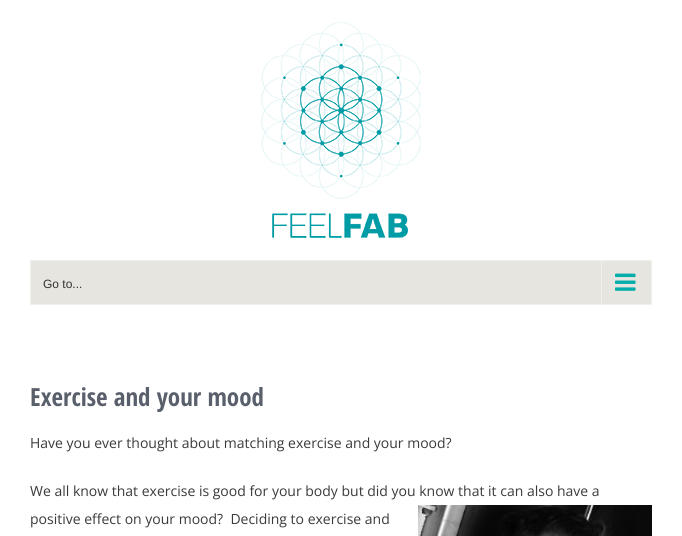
#include <cairo.h>
#include <math.h>
#include <stddef.h>

typedef struct { double x, y; const char *s; } line_t;

static void ink(cairo_t *ctx, unsigned color) {
    cairo_set_source_rgb(ctx, (color >> 16) / 255.0, (color >> 8 & 255) / 255.0, (color & 255) / 255.0);
}

static void paste(cairo_t *ctx, const char *path, double x, double y, double w, double h) {
    cairo_surface_t *image = cairo_image_surface_create_from_png(path);
    cairo_save(ctx);
    cairo_set_source_surface(ctx, image, x, y);
    cairo_rectangle(ctx, x, y, w, h);
    cairo_fill(ctx);
    cairo_restore(ctx);
    cairo_surface_destroy(image);
}

int main(void) {
    cairo_surface_t *surface = cairo_image_surface_create(CAIRO_FORMAT_RGB24, 682, 536);
    cairo_t *ctx = cairo_create(surface);
    cairo_font_options_t *options = cairo_font_options_create();
    cairo_font_options_set_hint_metrics(options, CAIRO_HINT_METRICS_OFF);
    cairo_font_options_set_hint_style(options, CAIRO_HINT_STYLE_NONE);
    cairo_set_font_options(ctx, options);
    cairo_set_miter_limit(ctx, 4);
    ink(ctx, 0xFFFFFF);
    cairo_paint(ctx);
    paste(ctx, "media/1.png", 261, 22, 160, 216);
    ink(ctx, 0xE6E5DF);
    cairo_rectangle(ctx, 30.5, 260.5, 621, 44);
    cairo_fill_preserve(ctx);
    ink(ctx, 0xF1F0EC);
    cairo_set_line_width(ctx, 1);
    cairo_stroke(ctx);
    cairo_select_font_face(ctx, "Liberation Sans", CAIRO_FONT_SLANT_NORMAL, CAIRO_FONT_WEIGHT_NORMAL);
    cairo_set_font_size(ctx, 12);
    ink(ctx, 0x333333);
    cairo_move_to(ctx, 43, 288);
    cairo_show_text(ctx, "Go to...");
    ink(ctx, 0xF1F0EC);
    cairo_rectangle(ctx, 601, 261, 1, 43);
    cairo_fill(ctx);
    paste(ctx, "media/2.png", 615, 273, 21, 18);
    cairo_select_font_face(ctx, "Open Sans Condensed", CAIRO_FONT_SLANT_NORMAL, CAIRO_FONT_WEIGHT_BOLD);
    cairo_set_font_size(ctx, 25);
    ink(ctx, 0x595F6B);
    cairo_move_to(ctx, 30, 406);
    cairo_show_text(ctx, "Exercise and your mood");
    cairo_select_font_face(ctx, "Open Sans", CAIRO_FONT_SLANT_NORMAL, CAIRO_FONT_WEIGHT_NORMAL);
    cairo_set_font_size(ctx, 14);
    ink(ctx, 0x3A3A3A);
    {
        static const line_t items[] = {
            {30, 448, "Have you ever thought about matching exercise and your mood?"},
            {30, 496, "We all know that exercise is good for your body but did you know that it can also have a"},
            {30, 524, "positive effect on your mood?  Deciding to exercise and"},
        };
        for (size_t i = 0; i < sizeof items / sizeof *items; i++) {
            cairo_move_to(ctx, items[i].x, items[i].y);
            cairo_show_text(ctx, items[i].s);
        }
    }
    paste(ctx, "media/3.png", 418, 505, 234, 31);
    cairo_surface_write_to_png(surface, "image.png");
    cairo_font_options_destroy(options);
    cairo_destroy(ctx);
    cairo_surface_destroy(surface);
    return 0;
}
